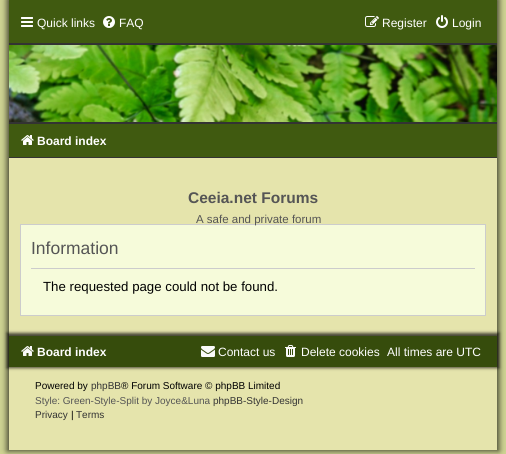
#include <cairo.h>
#include <math.h>
#include <stddef.h>

typedef struct { double x, y, w, h; unsigned color; } box_t;

static void ink(cairo_t *ctx, unsigned color) {
    cairo_set_source_rgb(ctx, (color >> 16) / 255.0, (color >> 8 & 255) / 255.0, (color & 255) / 255.0);
}

static void round_path(cairo_t *ctx, double x, double y, double w, double h, double r) {
    cairo_new_sub_path(ctx);
    cairo_arc(ctx, x + w - r, y + h - r, r, 0, M_PI / 2);
    cairo_arc(ctx, x + r, y + h - r, r, M_PI / 2, M_PI);
    cairo_arc(ctx, x + r, y + r, r, M_PI, 1.5 * M_PI);
    cairo_arc(ctx, x + w - r, y + r, r, 1.5 * M_PI, 2 * M_PI);
    cairo_close_path(ctx);
}

static void blur_box(cairo_t *ctx, double x, double y, double w, double h, double r, double blur, double alpha) {
    cairo_push_group_with_content(ctx, CAIRO_CONTENT_ALPHA);
    cairo_set_operator(ctx, CAIRO_OPERATOR_SOURCE);
    for (int i = 15; i >= -15 && fmin(w, h) + blur * i / 3 > 0; i -= 2) {
        double e = blur * i / 6;
        cairo_set_source_rgba(ctx, 0, 0, 0, alpha * erfc((i - 1) / 8.5) / 2);
        round_path(ctx, x - e, y - e, w + 2 * e, h + 2 * e, fmax(0, fmin(r + e + blur * .6, fmin(w, h) / 2 + e)));
        cairo_fill(ctx);
    }
    cairo_pattern_t *soft = cairo_pop_group(ctx);
    cairo_mask(ctx, soft);
    cairo_pattern_destroy(soft);
}

static void paste(cairo_t *ctx, const char *path, double x, double y, double w, double h) {
    cairo_surface_t *image = cairo_image_surface_create_from_png(path);
    cairo_save(ctx);
    cairo_set_source_surface(ctx, image, x, y);
    cairo_rectangle(ctx, x, y, w, h);
    cairo_fill(ctx);
    cairo_restore(ctx);
    cairo_surface_destroy(image);
}

int main(void) {
    cairo_surface_t *surface = cairo_image_surface_create(CAIRO_FORMAT_RGB24, 506, 454);
    cairo_t *ctx = cairo_create(surface);
    cairo_font_options_t *options = cairo_font_options_create();
    cairo_font_options_set_hint_metrics(options, CAIRO_HINT_METRICS_OFF);
    cairo_font_options_set_hint_style(options, CAIRO_HINT_STYLE_NONE);
    cairo_set_font_options(ctx, options);
    cairo_set_miter_limit(ctx, 4);
    ink(ctx, 0xCED392);
    cairo_paint(ctx);
    ink(ctx, 0x020202);
    blur_box(ctx, 7, -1, 492, 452, 0, 3, 0.7);
    ink(ctx, 0xE5E4AC);
    cairo_rectangle(ctx, 9, 158, 488, 292);
    cairo_fill(ctx);
    ink(ctx, 0x405A10);
    cairo_rectangle(ctx, 9, 0, 488, 43);
    cairo_fill(ctx);
    paste(ctx, "media/1.png", 21, 17, 12, 10);
    cairo_select_font_face(ctx, "Liberation Sans", CAIRO_FONT_SLANT_NORMAL, CAIRO_FONT_WEIGHT_NORMAL);
    cairo_set_font_size(ctx, 12);
    ink(ctx, 0xFFFFFF);
    cairo_move_to(ctx, 37, 27);
    cairo_show_text(ctx, "Quick links");
    paste(ctx, "media/2.png", 103, 16, 12, 12);
    cairo_move_to(ctx, 119, 27);
    cairo_show_text(ctx, "FAQ");
    paste(ctx, "media/3.png", 365, 16, 14, 11);
    cairo_move_to(ctx, 382, 27);
    cairo_show_text(ctx, "Register");
    paste(ctx, "media/4.png", 436, 15, 12, 13);
    cairo_move_to(ctx, 452, 27);
    cairo_show_text(ctx, "Login");
    ink(ctx, 0x333333);
    cairo_rectangle(ctx, 9, 43, 488, 2);
    cairo_fill(ctx);
    paste(ctx, "media/5.png", 9, 45, 488, 77);
    {
        static const box_t items[] = {
            {9, 124, 488, 33, 0x405A10},
            {9, 122, 488, 2, 0x333333},
            {9, 157, 488, 1, 0x333333},
        };
        for (size_t i = 0; i < sizeof items / sizeof *items; i++) {
            ink(ctx, items[i].color);
            cairo_rectangle(ctx, items[i].x, items[i].y, items[i].w, items[i].h);
            cairo_fill(ctx);
        }
    }
    paste(ctx, "media/6.png", 21, 135, 13, 10);
    cairo_select_font_face(ctx, "Liberation Sans", CAIRO_FONT_SLANT_NORMAL, CAIRO_FONT_WEIGHT_BOLD);
    ink(ctx, 0xFFFFFF);
    cairo_move_to(ctx, 37, 145);
    cairo_show_text(ctx, "Board index");
    cairo_set_font_size(ctx, 15.5);
    ink(ctx, 0x555555);
    cairo_move_to(ctx, 188, 203);
    cairo_show_text(ctx, "Ceeia.net Forums");
    ink(ctx, 0xF6FBDA);
    cairo_rectangle(ctx, 20.5, 224.5, 465, 91);
    cairo_fill_preserve(ctx);
    ink(ctx, 0xCCCCCC);
    cairo_set_line_width(ctx, 1);
    cairo_stroke(ctx);
    cairo_select_font_face(ctx, "Liberation Sans", CAIRO_FONT_SLANT_NORMAL, CAIRO_FONT_WEIGHT_NORMAL);
    cairo_set_font_size(ctx, 11.5);
    ink(ctx, 0x555555);
    cairo_move_to(ctx, 196, 223);
    cairo_show_text(ctx, "A safe and private forum");
    ink(ctx, 0xCCCCCC);
    cairo_rectangle(ctx, 31, 268, 444, 1);
    cairo_fill(ctx);
    cairo_set_font_size(ctx, 17.5);
    ink(ctx, 0x555555);
    cairo_move_to(ctx, 31, 254);
    cairo_show_text(ctx, "Information");
    cairo_set_font_size(ctx, 13.25);
    ink(ctx, 0x000000);
    cairo_move_to(ctx, 43, 291);
    cairo_show_text(ctx, "The requested page could not be found.");
    ink(ctx, 0x020202);
    blur_box(ctx, 7, 333, 492, 35, 0, 1.5, 0.7);
    ink(ctx, 0x364C0C);
    cairo_rectangle(ctx, 9, 336, 488, 31);
    cairo_fill(ctx);
    paste(ctx, "media/7.png", 21, 346, 13, 10);
    cairo_select_font_face(ctx, "Liberation Sans", CAIRO_FONT_SLANT_NORMAL, CAIRO_FONT_WEIGHT_BOLD);
    cairo_set_font_size(ctx, 12);
    ink(ctx, 0xFFFFFF);
    cairo_move_to(ctx, 37, 356);
    cairo_show_text(ctx, "Board index");
    paste(ctx, "media/8.png", 201, 346, 14, 11);
    cairo_select_font_face(ctx, "Liberation Sans", CAIRO_FONT_SLANT_NORMAL, CAIRO_FONT_WEIGHT_NORMAL);
    cairo_move_to(ctx, 218, 356);
    cairo_show_text(ctx, "Contact us");
    paste(ctx, "media/9.png", 285, 345, 11, 12);
    cairo_move_to(ctx, 301, 356);
    cairo_show_text(ctx, "Delete cookies");
    cairo_move_to(ctx, 387, 356);
    cairo_show_text(ctx, "All times are UTC");
    cairo_set_font_size(ctx, 10);
    ink(ctx, 0x000000);
    cairo_move_to(ctx, 35, 389);
    cairo_show_text(ctx, "Powered by");
    ink(ctx, 0x333333);
    cairo_move_to(ctx, 91, 389);
    cairo_show_text(ctx, "phpBB");
    ink(ctx, 0x000000);
    cairo_move_to(ctx, 121, 389);
    cairo_show_text(ctx, "® Forum Software © phpBB Limited");
    ink(ctx, 0x555555);
    cairo_move_to(ctx, 35, 404);
    cairo_show_text(ctx, "Style: Green-Style-Split by Joyce&Luna");
    ink(ctx, 0x333333);
    cairo_move_to(ctx, 213, 404);
    cairo_show_text(ctx, "phpBB-Style-Design");
    cairo_move_to(ctx, 35, 418);
    cairo_show_text(ctx, "Privacy");
    ink(ctx, 0x000000);
    cairo_move_to(ctx, 71, 418);
    cairo_show_text(ctx, "|");
    ink(ctx, 0x333333);
    cairo_move_to(ctx, 76, 418);
    cairo_show_text(ctx, "Terms");
    cairo_surface_write_to_png(surface, "image.png");
    cairo_font_options_destroy(options);
    cairo_destroy(ctx);
    cairo_surface_destroy(surface);
    return 0;
}
